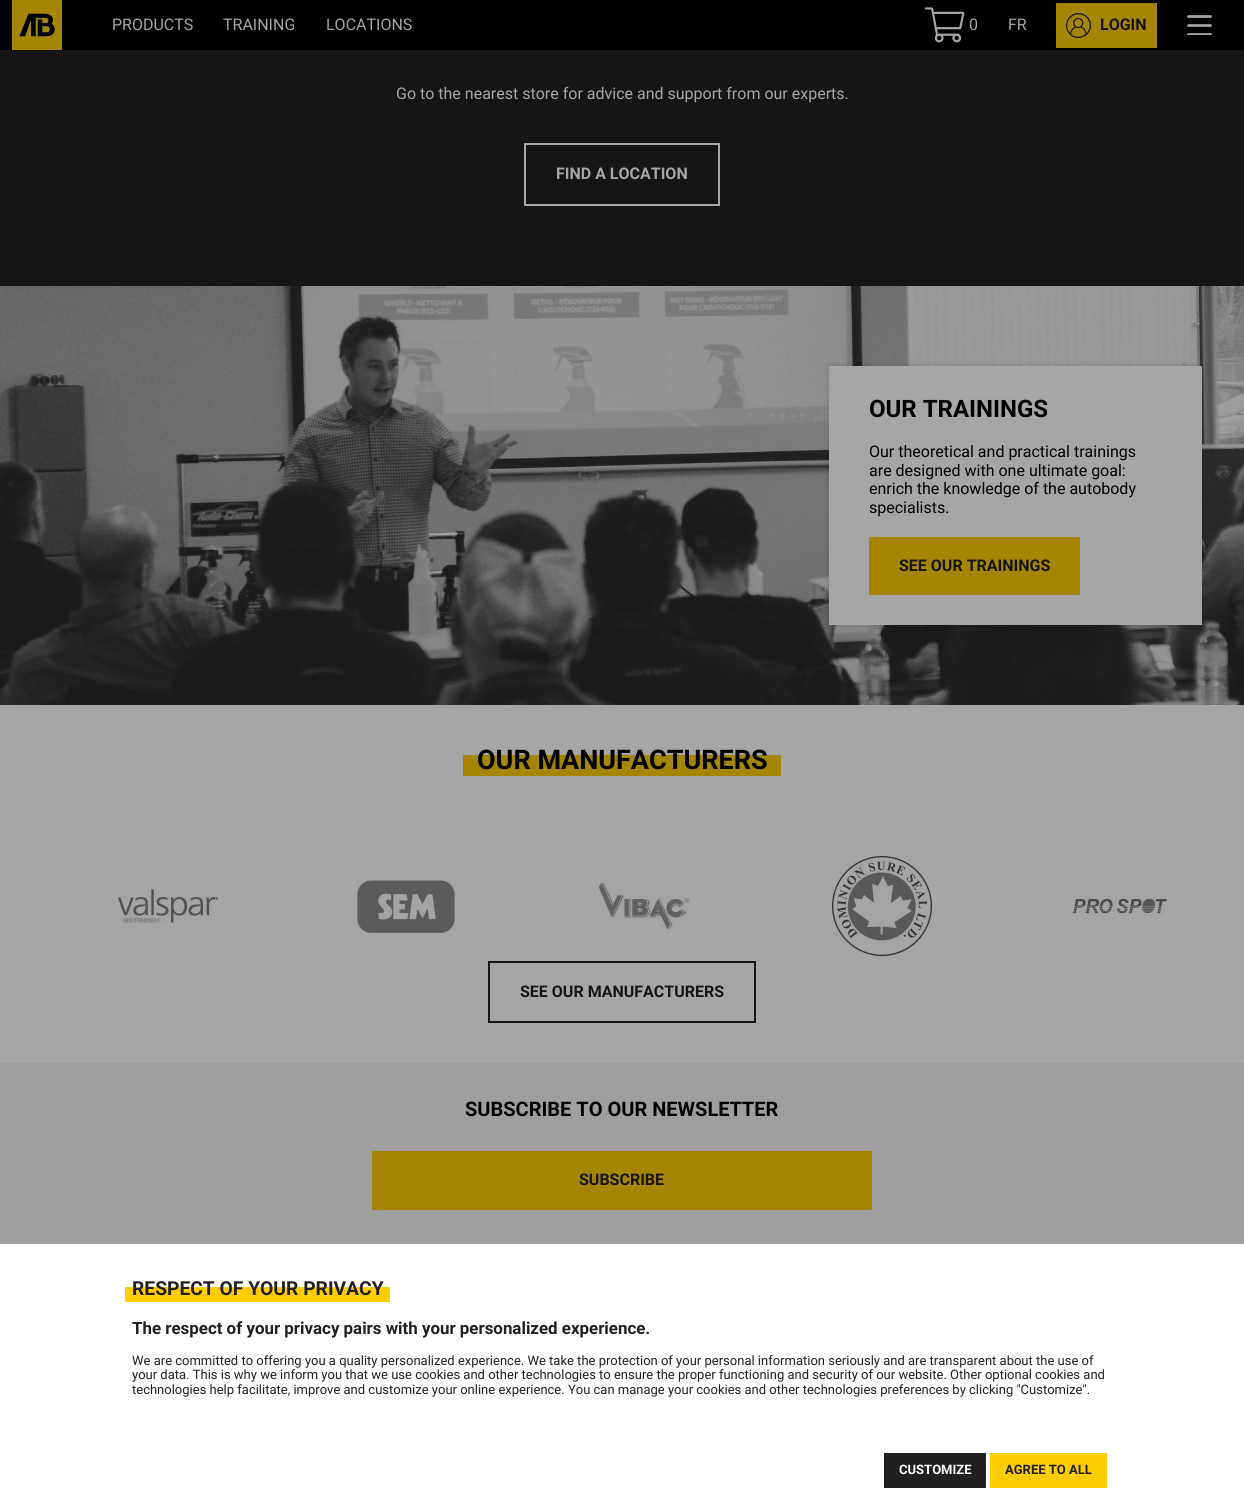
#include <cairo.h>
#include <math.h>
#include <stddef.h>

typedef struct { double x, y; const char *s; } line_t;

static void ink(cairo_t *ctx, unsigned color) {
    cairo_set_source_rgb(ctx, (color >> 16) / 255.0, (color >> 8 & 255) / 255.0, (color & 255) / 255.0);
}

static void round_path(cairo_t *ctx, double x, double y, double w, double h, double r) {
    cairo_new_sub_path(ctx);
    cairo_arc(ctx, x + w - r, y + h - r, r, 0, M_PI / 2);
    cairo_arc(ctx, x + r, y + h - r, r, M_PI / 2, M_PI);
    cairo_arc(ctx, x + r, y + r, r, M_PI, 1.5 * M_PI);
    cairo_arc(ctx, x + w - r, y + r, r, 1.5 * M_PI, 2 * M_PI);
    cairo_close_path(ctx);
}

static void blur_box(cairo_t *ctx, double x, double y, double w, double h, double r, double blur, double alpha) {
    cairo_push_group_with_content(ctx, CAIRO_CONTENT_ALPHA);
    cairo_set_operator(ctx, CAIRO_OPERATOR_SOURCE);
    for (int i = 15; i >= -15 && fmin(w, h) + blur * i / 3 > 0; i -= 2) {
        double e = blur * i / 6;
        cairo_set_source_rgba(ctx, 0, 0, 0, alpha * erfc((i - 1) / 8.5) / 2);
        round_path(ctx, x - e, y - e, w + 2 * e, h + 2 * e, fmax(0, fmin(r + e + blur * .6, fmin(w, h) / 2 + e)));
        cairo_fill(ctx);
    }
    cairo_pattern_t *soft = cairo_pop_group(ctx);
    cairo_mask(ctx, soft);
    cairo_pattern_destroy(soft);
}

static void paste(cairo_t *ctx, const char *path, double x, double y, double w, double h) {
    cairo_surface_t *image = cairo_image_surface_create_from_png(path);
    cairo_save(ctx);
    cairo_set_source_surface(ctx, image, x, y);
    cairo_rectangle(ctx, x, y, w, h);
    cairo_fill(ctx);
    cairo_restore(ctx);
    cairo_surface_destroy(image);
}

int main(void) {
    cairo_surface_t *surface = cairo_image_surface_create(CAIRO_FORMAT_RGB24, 1244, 1507);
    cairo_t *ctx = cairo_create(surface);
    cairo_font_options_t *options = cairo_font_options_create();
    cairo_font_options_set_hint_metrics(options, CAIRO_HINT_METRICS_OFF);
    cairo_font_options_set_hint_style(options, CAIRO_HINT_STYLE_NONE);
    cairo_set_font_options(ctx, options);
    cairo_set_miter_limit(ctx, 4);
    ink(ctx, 0xA6A6A6);
    cairo_paint(ctx);
    ink(ctx, 0x000000);
    cairo_rectangle(ctx, 0, 0, 1244, 50);
    cairo_fill(ctx);
    paste(ctx, "media/1.png", 12, 0, 50, 50);
    cairo_select_font_face(ctx, "Roboto", CAIRO_FONT_SLANT_NORMAL, CAIRO_FONT_WEIGHT_NORMAL);
    cairo_set_font_size(ctx, 16);
    ink(ctx, 0xA6A6A6);
    {
        static const line_t items[] = {
            {112, 30, "PRODUCTS"},
            {223, 30, "TRAINING"},
            {326, 30, "LOCATIONS"},
        };
        for (size_t i = 0; i < sizeof items / sizeof *items; i++) {
            cairo_move_to(ctx, items[i].x, items[i].y);
            cairo_show_text(ctx, items[i].s);
        }
    }
    paste(ctx, "media/2.png", 925, 7, 40, 36);
    cairo_move_to(ctx, 969, 30);
    cairo_show_text(ctx, "0");
    cairo_move_to(ctx, 1008, 30);
    cairo_show_text(ctx, "FR");
    ink(ctx, 0xA68500);
    cairo_rectangle(ctx, 1056, 3, 101, 45);
    cairo_fill(ctx);
    paste(ctx, "media/3.png", 1066, 13, 25, 25);
    cairo_select_font_face(ctx, "Roboto", CAIRO_FONT_SLANT_NORMAL, CAIRO_FONT_WEIGHT_BOLD);
    ink(ctx, 0x161415);
    cairo_move_to(ctx, 1100, 30);
    cairo_show_text(ctx, "LOGIN");
    cairo_new_path(ctx);
    cairo_move_to(ctx, 1188.5, 16.5);
    cairo_line_to(ctx, 1210.5, 16.5);
    cairo_move_to(ctx, 1188.5, 25.5);
    cairo_line_to(ctx, 1210.5, 25.5);
    ink(ctx, 0xA6A6A6);
    cairo_set_line_width(ctx, 2.8);
    cairo_set_line_cap(ctx, CAIRO_LINE_CAP_ROUND);
    cairo_stroke(ctx);
    cairo_save(ctx);
    cairo_rectangle(ctx, 1187, 15, 25, 20);
    cairo_clip(ctx);
    cairo_new_path(ctx);
    cairo_move_to(ctx, 1188.5, 34.5);
    cairo_line_to(ctx, 1210.5, 34.5);
    cairo_stroke(ctx);
    cairo_restore(ctx);
    ink(ctx, 0x161415);
    cairo_rectangle(ctx, 0, 50, 1244, 236);
    cairo_fill(ctx);
    cairo_select_font_face(ctx, "Roboto", CAIRO_FONT_SLANT_NORMAL, CAIRO_FONT_WEIGHT_NORMAL);
    ink(ctx, 0xA6A6A6);
    cairo_move_to(ctx, 396, 99);
    cairo_show_text(ctx, "Go to the nearest store for advice and support from our experts.");
    cairo_rectangle(ctx, 525, 144, 194, 61);
    cairo_set_line_width(ctx, 2);
    cairo_set_line_cap(ctx, CAIRO_LINE_CAP_BUTT);
    cairo_stroke(ctx);
    cairo_select_font_face(ctx, "Roboto", CAIRO_FONT_SLANT_NORMAL, CAIRO_FONT_WEIGHT_BOLD);
    cairo_move_to(ctx, 556, 179);
    cairo_show_text(ctx, "FIND A LOCATION");
    paste(ctx, "media/4.png", 0, 286, 1244, 419);
    ink(ctx, 0x000000);
    blur_box(ctx, 829, 366, 373, 259, 0, 3, 0.16);
    ink(ctx, 0xA6A6A6);
    cairo_rectangle(ctx, 829, 366, 373, 259);
    cairo_fill(ctx);
    cairo_set_font_size(ctx, 24);
    ink(ctx, 0x000000);
    cairo_move_to(ctx, 869, 417);
    cairo_show_text(ctx, "OUR TRAININGS");
    cairo_select_font_face(ctx, "Roboto", CAIRO_FONT_SLANT_NORMAL, CAIRO_FONT_WEIGHT_NORMAL);
    cairo_set_font_size(ctx, 16);
    {
        static const line_t items[] = {
            {869, 457, "Our theoretical and practical trainings"},
            {869, 476, "are designed with one ultimate goal:"},
            {869, 494, "enrich the knowledge of the autobody"},
            {869, 513, "specialists."},
        };
        for (size_t i = 0; i < sizeof items / sizeof *items; i++) {
            cairo_move_to(ctx, items[i].x, items[i].y);
            cairo_show_text(ctx, items[i].s);
        }
    }
    ink(ctx, 0xA68500);
    cairo_rectangle(ctx, 869, 537, 211, 58);
    cairo_fill(ctx);
    cairo_select_font_face(ctx, "Roboto", CAIRO_FONT_SLANT_NORMAL, CAIRO_FONT_WEIGHT_BOLD);
    ink(ctx, 0x161415);
    cairo_move_to(ctx, 899, 571);
    cairo_show_text(ctx, "SEE OUR TRAININGS");
    ink(ctx, 0xA68500);
    cairo_rectangle(ctx, 463, 755, 318, 21);
    cairo_fill(ctx);
    cairo_set_font_size(ctx, 27);
    ink(ctx, 0x000000);
    cairo_move_to(ctx, 477, 769);
    cairo_show_text(ctx, "OUR MANUFACTURERS");
    paste(ctx, "media/5.png", 118, 888, 100, 36);
    paste(ctx, "media/6.png", 356, 880, 100, 54);
    paste(ctx, "media/7.png", 598, 880, 92, 51);
    paste(ctx, "media/8.png", 832, 856, 100, 100);
    paste(ctx, "media/9.png", 1072, 896, 98, 20);
    cairo_rectangle(ctx, 489, 962, 266, 60);
    ink(ctx, 0x161415);
    cairo_stroke(ctx);
    cairo_set_font_size(ctx, 16);
    cairo_move_to(ctx, 520, 997);
    cairo_show_text(ctx, "SEE OUR MANUFACTURERS");
    ink(ctx, 0x9F9F9F);
    cairo_rectangle(ctx, 0, 1063, 1244, 181);
    cairo_fill(ctx);
    cairo_set_font_size(ctx, 20);
    ink(ctx, 0x000000);
    cairo_move_to(ctx, 465, 1116);
    cairo_show_text(ctx, "SUBSCRIBE TO OUR NEWSLETTER");
    ink(ctx, 0xA68500);
    cairo_rectangle(ctx, 372, 1151, 500, 59);
    cairo_fill(ctx);
    cairo_set_font_size(ctx, 16);
    ink(ctx, 0x161415);
    cairo_move_to(ctx, 579, 1185);
    cairo_show_text(ctx, "SUBSCRIBE");
    ink(ctx, 0xFFFFFF);
    cairo_rectangle(ctx, 0, 1244, 1244, 263);
    cairo_fill(ctx);
    ink(ctx, 0xFFCD00);
    cairo_rectangle(ctx, 125, 1287, 265, 15);
    cairo_fill(ctx);
    cairo_set_font_size(ctx, 19.25);
    ink(ctx, 0x221F20);
    cairo_move_to(ctx, 132, 1295);
    cairo_show_text(ctx, "RESPECT OF YOUR PRIVACY");
    cairo_set_font_size(ctx, 16.9);
    cairo_move_to(ctx, 132, 1334);
    cairo_show_text(ctx, "The respect of your privacy pairs with your personalized experience.");
    cairo_select_font_face(ctx, "Roboto", CAIRO_FONT_SLANT_NORMAL, CAIRO_FONT_WEIGHT_NORMAL);
    cairo_set_font_size(ctx, 13);
    {
        static const line_t items[] = {
            {132, 1365, "We are committed to offering you a quality personalized experience. We take the protection of your personal information seriously and are transparent about the use of"},
            {132, 1379, "your data. This is why we inform you that we use cookies and other technologies to ensure the proper functioning and security of our website. Other optional cookies and"},
            {132, 1394, "technologies help facilitate, improve and customize your online experience. You can manage your cookies and other technologies preferences by clicking \"Customize\"."},
        };
        for (size_t i = 0; i < sizeof items / sizeof *items; i++) {
            cairo_move_to(ctx, items[i].x, items[i].y);
            cairo_show_text(ctx, items[i].s);
        }
    }
    cairo_rectangle(ctx, 884, 1453, 102, 35);
    cairo_fill(ctx);
    cairo_select_font_face(ctx, "Roboto", CAIRO_FONT_SLANT_NORMAL, CAIRO_FONT_WEIGHT_BOLD);
    ink(ctx, 0xFFFFFF);
    cairo_move_to(ctx, 899, 1474);
    cairo_show_text(ctx, "CUSTOMIZE");
    ink(ctx, 0xFFCD00);
    cairo_rectangle(ctx, 990, 1453, 117, 35);
    cairo_fill(ctx);
    ink(ctx, 0x221F20);
    cairo_move_to(ctx, 1005, 1474);
    cairo_show_text(ctx, "AGREE TO ALL");
    cairo_surface_write_to_png(surface, "image.png");
    cairo_font_options_destroy(options);
    cairo_destroy(ctx);
    cairo_surface_destroy(surface);
    return 0;
}
